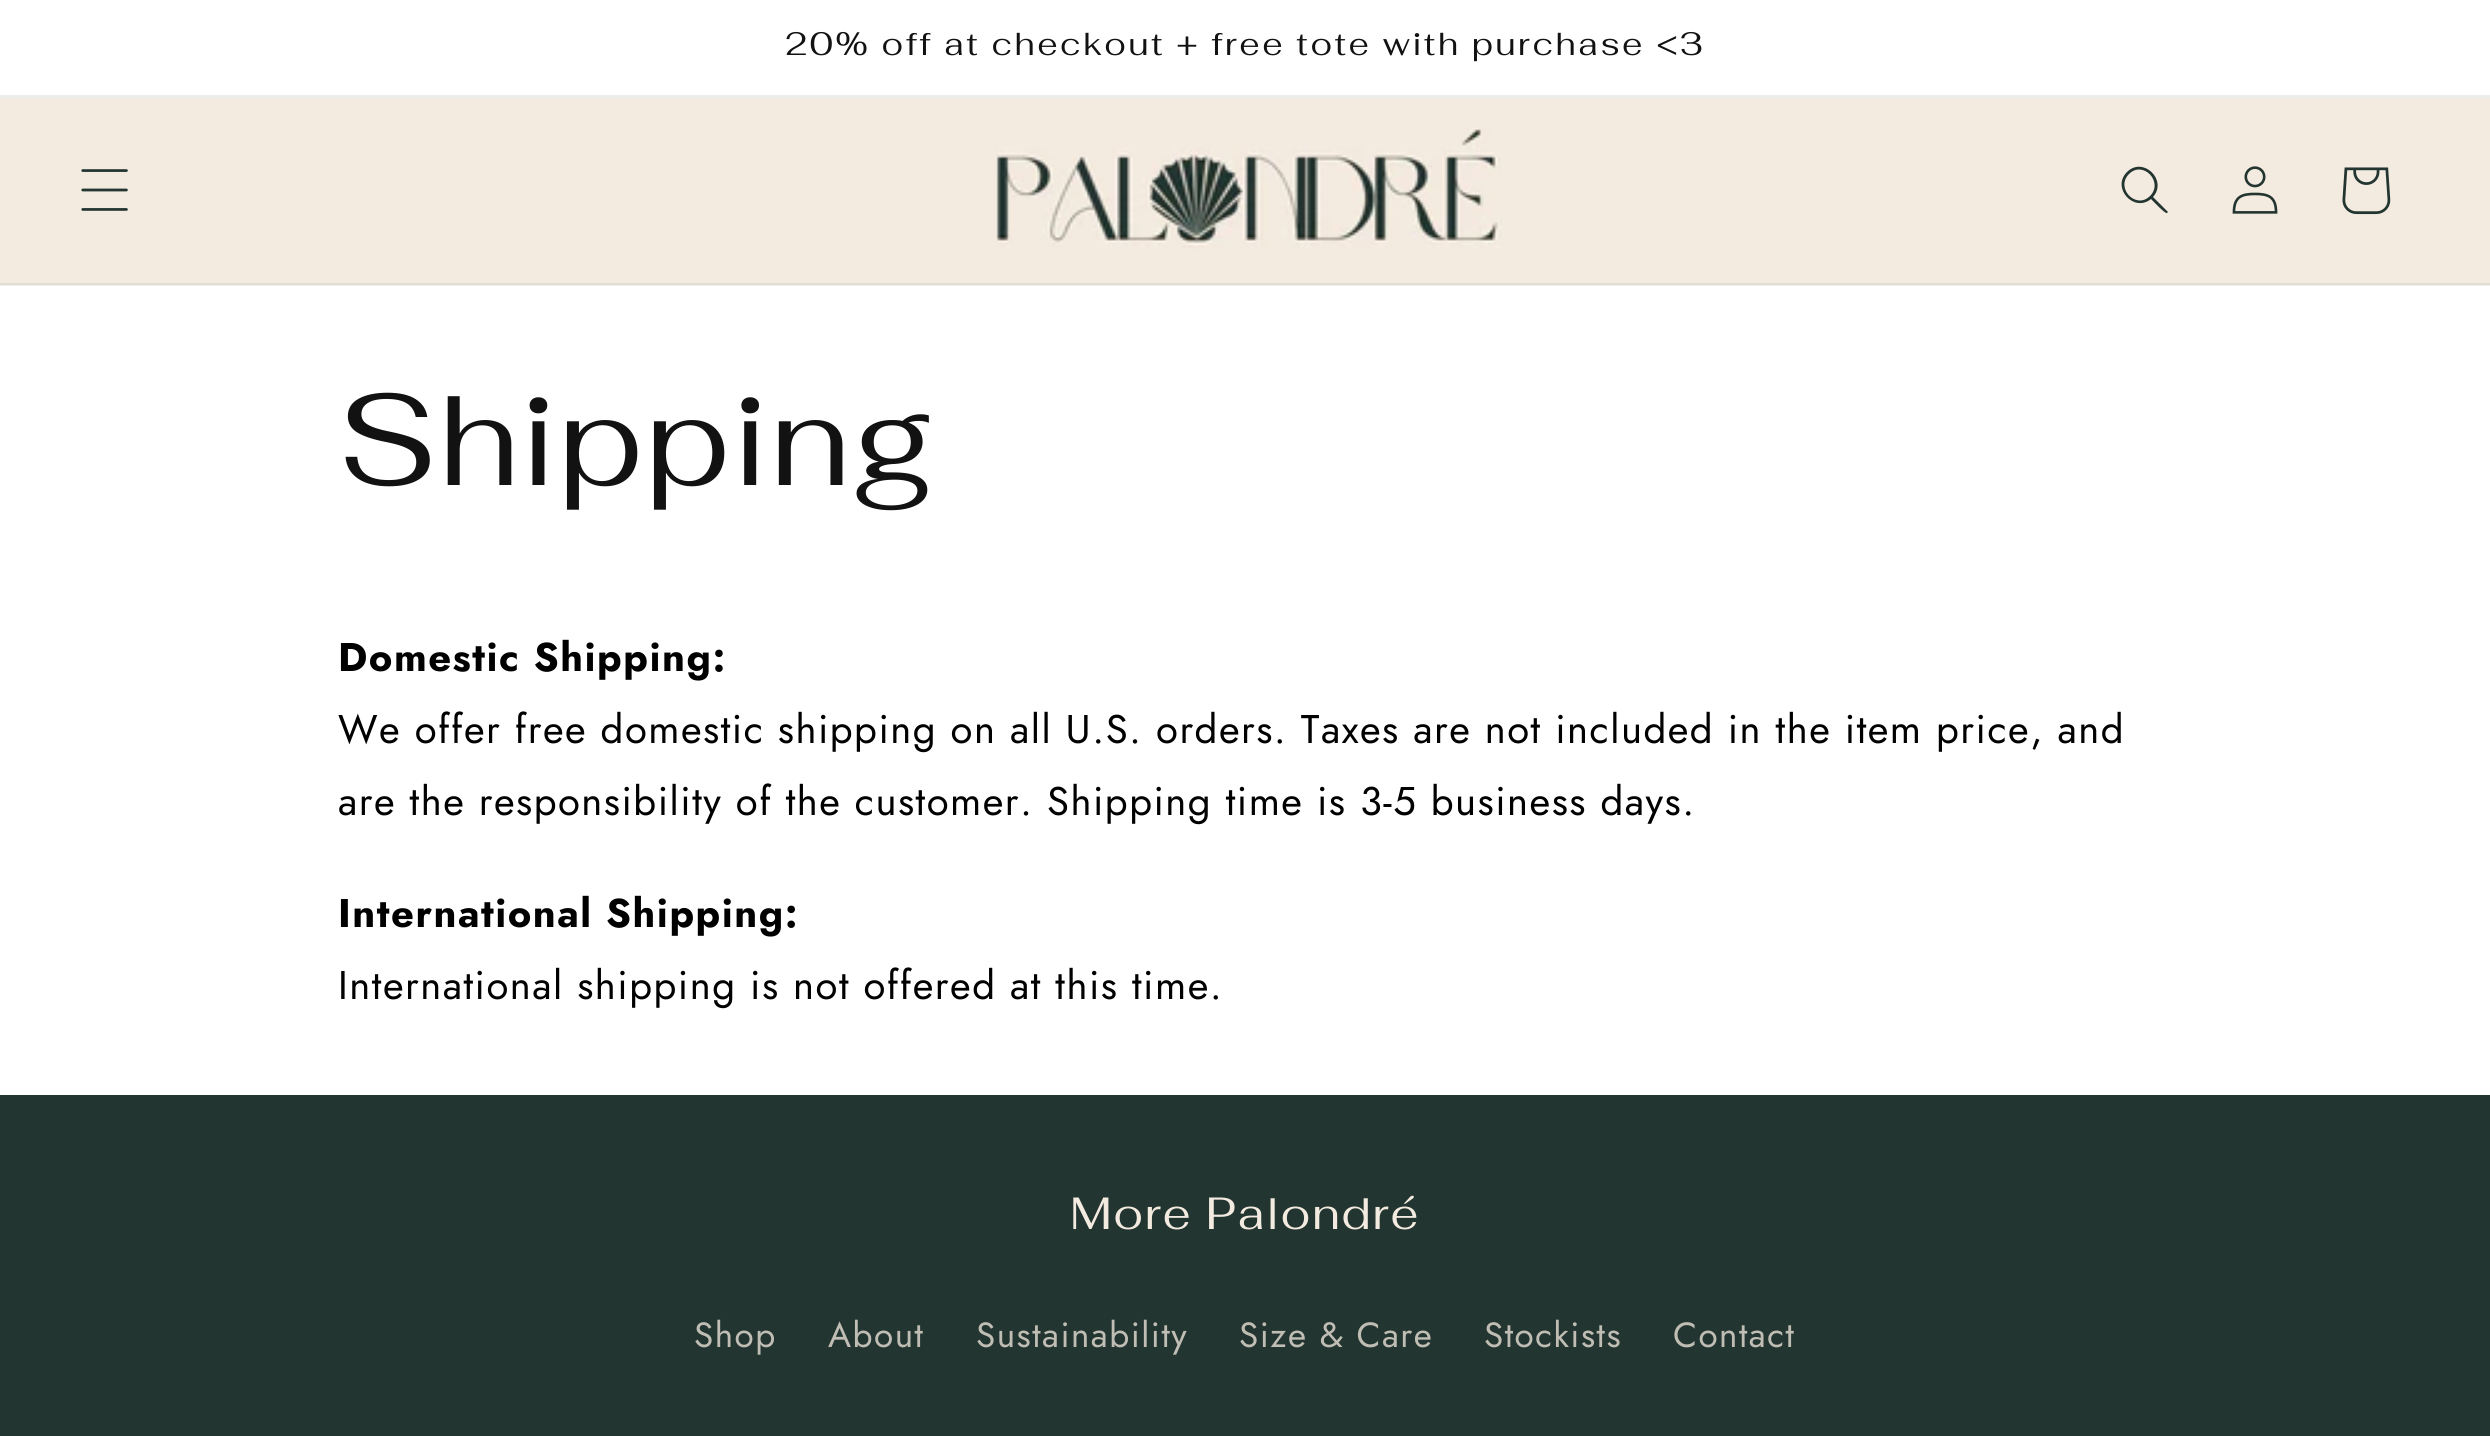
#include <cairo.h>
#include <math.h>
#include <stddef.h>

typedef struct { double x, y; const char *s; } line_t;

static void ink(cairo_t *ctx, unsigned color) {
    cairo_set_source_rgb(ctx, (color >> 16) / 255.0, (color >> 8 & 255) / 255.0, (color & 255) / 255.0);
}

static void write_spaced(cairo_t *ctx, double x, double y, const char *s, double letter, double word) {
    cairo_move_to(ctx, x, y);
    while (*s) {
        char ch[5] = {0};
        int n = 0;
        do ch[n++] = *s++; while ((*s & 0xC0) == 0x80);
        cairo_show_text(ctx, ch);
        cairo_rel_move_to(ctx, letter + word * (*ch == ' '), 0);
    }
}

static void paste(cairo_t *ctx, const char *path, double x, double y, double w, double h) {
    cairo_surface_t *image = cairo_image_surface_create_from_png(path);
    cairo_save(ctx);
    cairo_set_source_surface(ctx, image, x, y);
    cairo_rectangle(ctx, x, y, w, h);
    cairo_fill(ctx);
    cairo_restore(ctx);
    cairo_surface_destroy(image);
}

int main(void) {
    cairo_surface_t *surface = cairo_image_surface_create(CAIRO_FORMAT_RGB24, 2490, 1436);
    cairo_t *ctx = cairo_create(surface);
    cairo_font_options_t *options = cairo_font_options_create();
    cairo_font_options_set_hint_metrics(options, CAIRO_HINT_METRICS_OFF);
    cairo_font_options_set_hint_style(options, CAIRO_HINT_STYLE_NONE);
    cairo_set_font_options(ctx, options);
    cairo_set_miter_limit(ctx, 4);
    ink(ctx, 0xFFFFFF);
    cairo_paint(ctx);
    ink(ctx, 0xEDEFEF);
    cairo_rectangle(ctx, 0, 285, 2490, 1);
    cairo_fill(ctx);
    ink(ctx, 0xECECEC);
    cairo_rectangle(ctx, 0, 95, 2490, 3);
    cairo_fill(ctx);
    cairo_select_font_face(ctx, "Fahkwang", CAIRO_FONT_SLANT_NORMAL, CAIRO_FONT_WEIGHT_NORMAL);
    cairo_set_font_size(ctx, 32.5);
    ink(ctx, 0x121212);
    write_spaced(ctx, 785, 55, "20% off at checkout + free tote with purchase <3", 2.5, 0);
    ink(ctx, 0xF4EBE0);
    cairo_rectangle(ctx, 0, 98, 2490, 185);
    cairo_fill(ctx);
    ink(ctx, 0xE3DCD2);
    cairo_rectangle(ctx, 0, 283, 2490, 2);
    cairo_fill(ctx);
    paste(ctx, "media/1.png", 81, 169, 47, 42);
    paste(ctx, "media/2.png", 996, 128, 506, 122);
    ink(ctx, 0x233531);
    cairo_set_fill_rule(ctx, CAIRO_FILL_RULE_EVEN_ODD);
    cairo_new_path(ctx);
    cairo_move_to(ctx, 2150, 196);
    cairo_curve_to(ctx, 2136, 210, 2115, 188, 2129, 174);
    cairo_curve_to(ctx, 2143, 160, 2164, 182, 2150, 196);
    cairo_close_path(ctx);
    cairo_move_to(ctx, 2151, 199);
    cairo_curve_to(ctx, 2134, 213, 2111, 188, 2127, 172);
    cairo_curve_to(ctx, 2143, 156, 2168, 180, 2153, 197);
    cairo_line_to(ctx, 2168, 212);
    cairo_line_to(ctx, 2167, 213);
    cairo_curve_to(ctx, 2165, 214, 2153, 201, 2151, 199);
    cairo_close_path(ctx);
    cairo_fill(ctx);
    paste(ctx, "media/3.png", 2232, 166, 46, 48);
    paste(ctx, "media/4.png", 2342, 167, 49, 48);
    cairo_set_font_size(ctx, 130);
    ink(ctx, 0x121212);
    write_spaced(ctx, 338, 485, "Shipping", 1.5, 0);
    cairo_select_font_face(ctx, "Jost", CAIRO_FONT_SLANT_NORMAL, CAIRO_FONT_WEIGHT_BOLD);
    cairo_set_font_size(ctx, 40);
    ink(ctx, 0x000000);
    write_spaced(ctx, 338, 671, "Domestic Shipping:", 1.5, 0);
    cairo_select_font_face(ctx, "Jost", CAIRO_FONT_SLANT_NORMAL, CAIRO_FONT_WEIGHT_NORMAL);
    write_spaced(ctx, 338, 743, "We offer free domestic shipping on all U.S. orders. Taxes are not included in the item price, and", 1.5, 0);
    write_spaced(ctx, 338, 815, "are the responsibility of the customer. Shipping time is 3-5 business days.", 1.5, 0);
    cairo_select_font_face(ctx, "Jost", CAIRO_FONT_SLANT_NORMAL, CAIRO_FONT_WEIGHT_BOLD);
    write_spaced(ctx, 338, 927, "International Shipping:", 1.5, 0);
    cairo_select_font_face(ctx, "Jost", CAIRO_FONT_SLANT_NORMAL, CAIRO_FONT_WEIGHT_NORMAL);
    write_spaced(ctx, 338, 999, "International shipping is not offered at this time.", 1.5, 0);
    ink(ctx, 0x233531);
    cairo_rectangle(ctx, 0, 1095, 2490, 341);
    cairo_fill(ctx);
    cairo_select_font_face(ctx, "Fahkwang", CAIRO_FONT_SLANT_NORMAL, CAIRO_FONT_WEIGHT_NORMAL);
    cairo_set_font_size(ctx, 45);
    ink(ctx, 0xF4EBE0);
    write_spaced(ctx, 1070, 1229, "More Palondré", 1.5, 0);
    cairo_select_font_face(ctx, "Jost", CAIRO_FONT_SLANT_NORMAL, CAIRO_FONT_WEIGHT_NORMAL);
    cairo_set_font_size(ctx, 35);
    ink(ctx, 0xC0BEB4);
    {
        static const line_t items[] = {
            {694, 1347, "Shop"},
            {828, 1347, "About"},
            {976, 1347, "Sustainability"},
            {1239, 1347, "Size & Care"},
            {1484, 1347, "Stockists"},
            {1673, 1347, "Contact"},
        };
        for (size_t i = 0; i < sizeof items / sizeof *items; i++) {
            write_spaced(ctx, items[i].x, items[i].y, items[i].s, 1.5, 0);
        }
    }
    cairo_surface_write_to_png(surface, "image.png");
    cairo_font_options_destroy(options);
    cairo_destroy(ctx);
    cairo_surface_destroy(surface);
    return 0;
}
